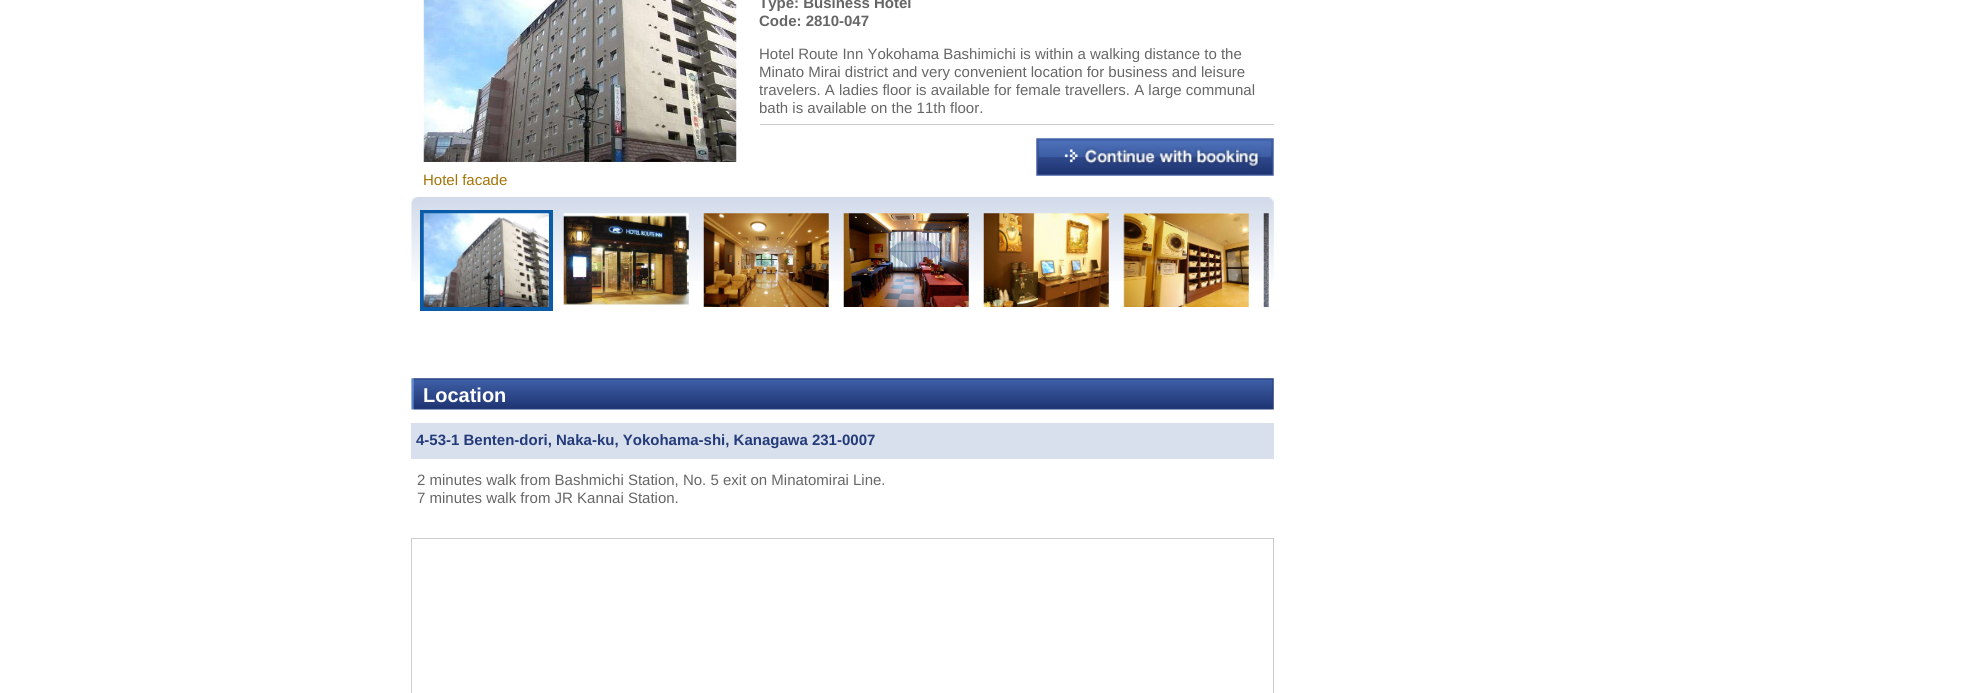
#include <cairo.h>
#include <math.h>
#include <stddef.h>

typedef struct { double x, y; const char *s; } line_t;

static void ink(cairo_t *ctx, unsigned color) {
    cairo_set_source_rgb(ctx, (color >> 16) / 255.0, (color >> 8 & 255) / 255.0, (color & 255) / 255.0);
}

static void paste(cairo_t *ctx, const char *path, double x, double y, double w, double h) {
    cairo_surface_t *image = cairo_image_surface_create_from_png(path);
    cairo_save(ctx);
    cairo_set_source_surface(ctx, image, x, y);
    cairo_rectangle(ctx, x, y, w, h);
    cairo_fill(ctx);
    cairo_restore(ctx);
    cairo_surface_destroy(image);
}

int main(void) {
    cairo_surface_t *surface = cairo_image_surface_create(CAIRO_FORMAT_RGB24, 1966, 693);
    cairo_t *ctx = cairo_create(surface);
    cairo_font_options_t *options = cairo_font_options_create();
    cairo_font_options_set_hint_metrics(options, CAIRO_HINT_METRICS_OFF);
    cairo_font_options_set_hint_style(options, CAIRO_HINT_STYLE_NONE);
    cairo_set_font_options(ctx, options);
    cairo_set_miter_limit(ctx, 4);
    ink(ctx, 0xFFFFFF);
    cairo_paint(ctx);
    cairo_select_font_face(ctx, "Liberation Sans", CAIRO_FONT_SLANT_NORMAL, CAIRO_FONT_WEIGHT_BOLD);
    cairo_set_font_size(ctx, 15);
    ink(ctx, 0x666666);
    cairo_move_to(ctx, 759, 8);
    cairo_show_text(ctx, "Type: Business Hotel");
    cairo_move_to(ctx, 759, 26);
    cairo_show_text(ctx, "Code: 2810-047");
    cairo_select_font_face(ctx, "Liberation Sans", CAIRO_FONT_SLANT_NORMAL, CAIRO_FONT_WEIGHT_NORMAL);
    {
        static const line_t items[] = {
            {759, 59, "Hotel Route Inn Yokohama Bashimichi is within a walking distance to the"},
            {759, 77, "Minato Mirai district and very convenient location for business and leisure"},
            {759, 95, "travelers. A ladies floor is available for female travellers. A large communal"},
            {759, 113, "bath is available on the 11th floor."},
        };
        for (size_t i = 0; i < sizeof items / sizeof *items; i++) {
            cairo_move_to(ctx, items[i].x, items[i].y);
            cairo_show_text(ctx, items[i].s);
        }
    }
    ink(ctx, 0xCCCCCC);
    cairo_rectangle(ctx, 760, 124, 514, 1);
    cairo_fill(ctx);
    paste(ctx, "media/1.png", 1036, 138, 238, 38);
    paste(ctx, "media/2.png", 423, 0, 314, 162);
    ink(ctx, 0xA47406);
    cairo_move_to(ctx, 423, 185);
    cairo_show_text(ctx, "Hotel facade");
    paste(ctx, "media/3.png", 411, 197, 863, 84);
    cairo_rectangle(ctx, 422, 212, 129, 97);
    ink(ctx, 0x0A5CA8);
    cairo_set_line_width(ctx, 4);
    cairo_stroke(ctx);
    paste(ctx, "media/4.png", 423, 213, 126, 94);
    paste(ctx, "media/5.png", 563, 213, 126, 93);
    paste(ctx, "media/6.png", 703, 213, 126, 94);
    paste(ctx, "media/7.png", 843, 213, 126, 94);
    paste(ctx, "media/8.png", 983, 213, 126, 94);
    paste(ctx, "media/9.png", 1123, 213, 126, 94);
    paste(ctx, "media/10.png", 1263, 213, 6, 94);
    paste(ctx, "media/11.png", 411, 378, 863, 32);
    cairo_select_font_face(ctx, "Liberation Sans", CAIRO_FONT_SLANT_NORMAL, CAIRO_FONT_WEIGHT_BOLD);
    cairo_set_font_size(ctx, 20);
    ink(ctx, 0xFFFFFF);
    cairo_move_to(ctx, 423, 402);
    cairo_show_text(ctx, "Location");
    ink(ctx, 0xD8DFED);
    cairo_rectangle(ctx, 411, 423, 863, 36);
    cairo_fill(ctx);
    cairo_set_font_size(ctx, 15);
    ink(ctx, 0x243B7A);
    cairo_move_to(ctx, 416, 445);
    cairo_show_text(ctx, "4-53-1 Benten-dori, Naka-ku, Yokohama-shi, Kanagawa 231-0007");
    cairo_select_font_face(ctx, "Liberation Sans", CAIRO_FONT_SLANT_NORMAL, CAIRO_FONT_WEIGHT_NORMAL);
    ink(ctx, 0x666666);
    cairo_move_to(ctx, 417, 485);
    cairo_show_text(ctx, "2 minutes walk from Bashmichi Station, No. 5 exit on Minatomirai Line.");
    cairo_move_to(ctx, 417, 503);
    cairo_show_text(ctx, "7 minutes walk from JR Kannai Station.");
    cairo_rectangle(ctx, 411.5, 538.5, 862, 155);
    ink(ctx, 0xCCCCCC);
    cairo_set_line_width(ctx, 1);
    cairo_stroke(ctx);
    cairo_surface_write_to_png(surface, "image.png");
    cairo_font_options_destroy(options);
    cairo_destroy(ctx);
    cairo_surface_destroy(surface);
    return 0;
}
